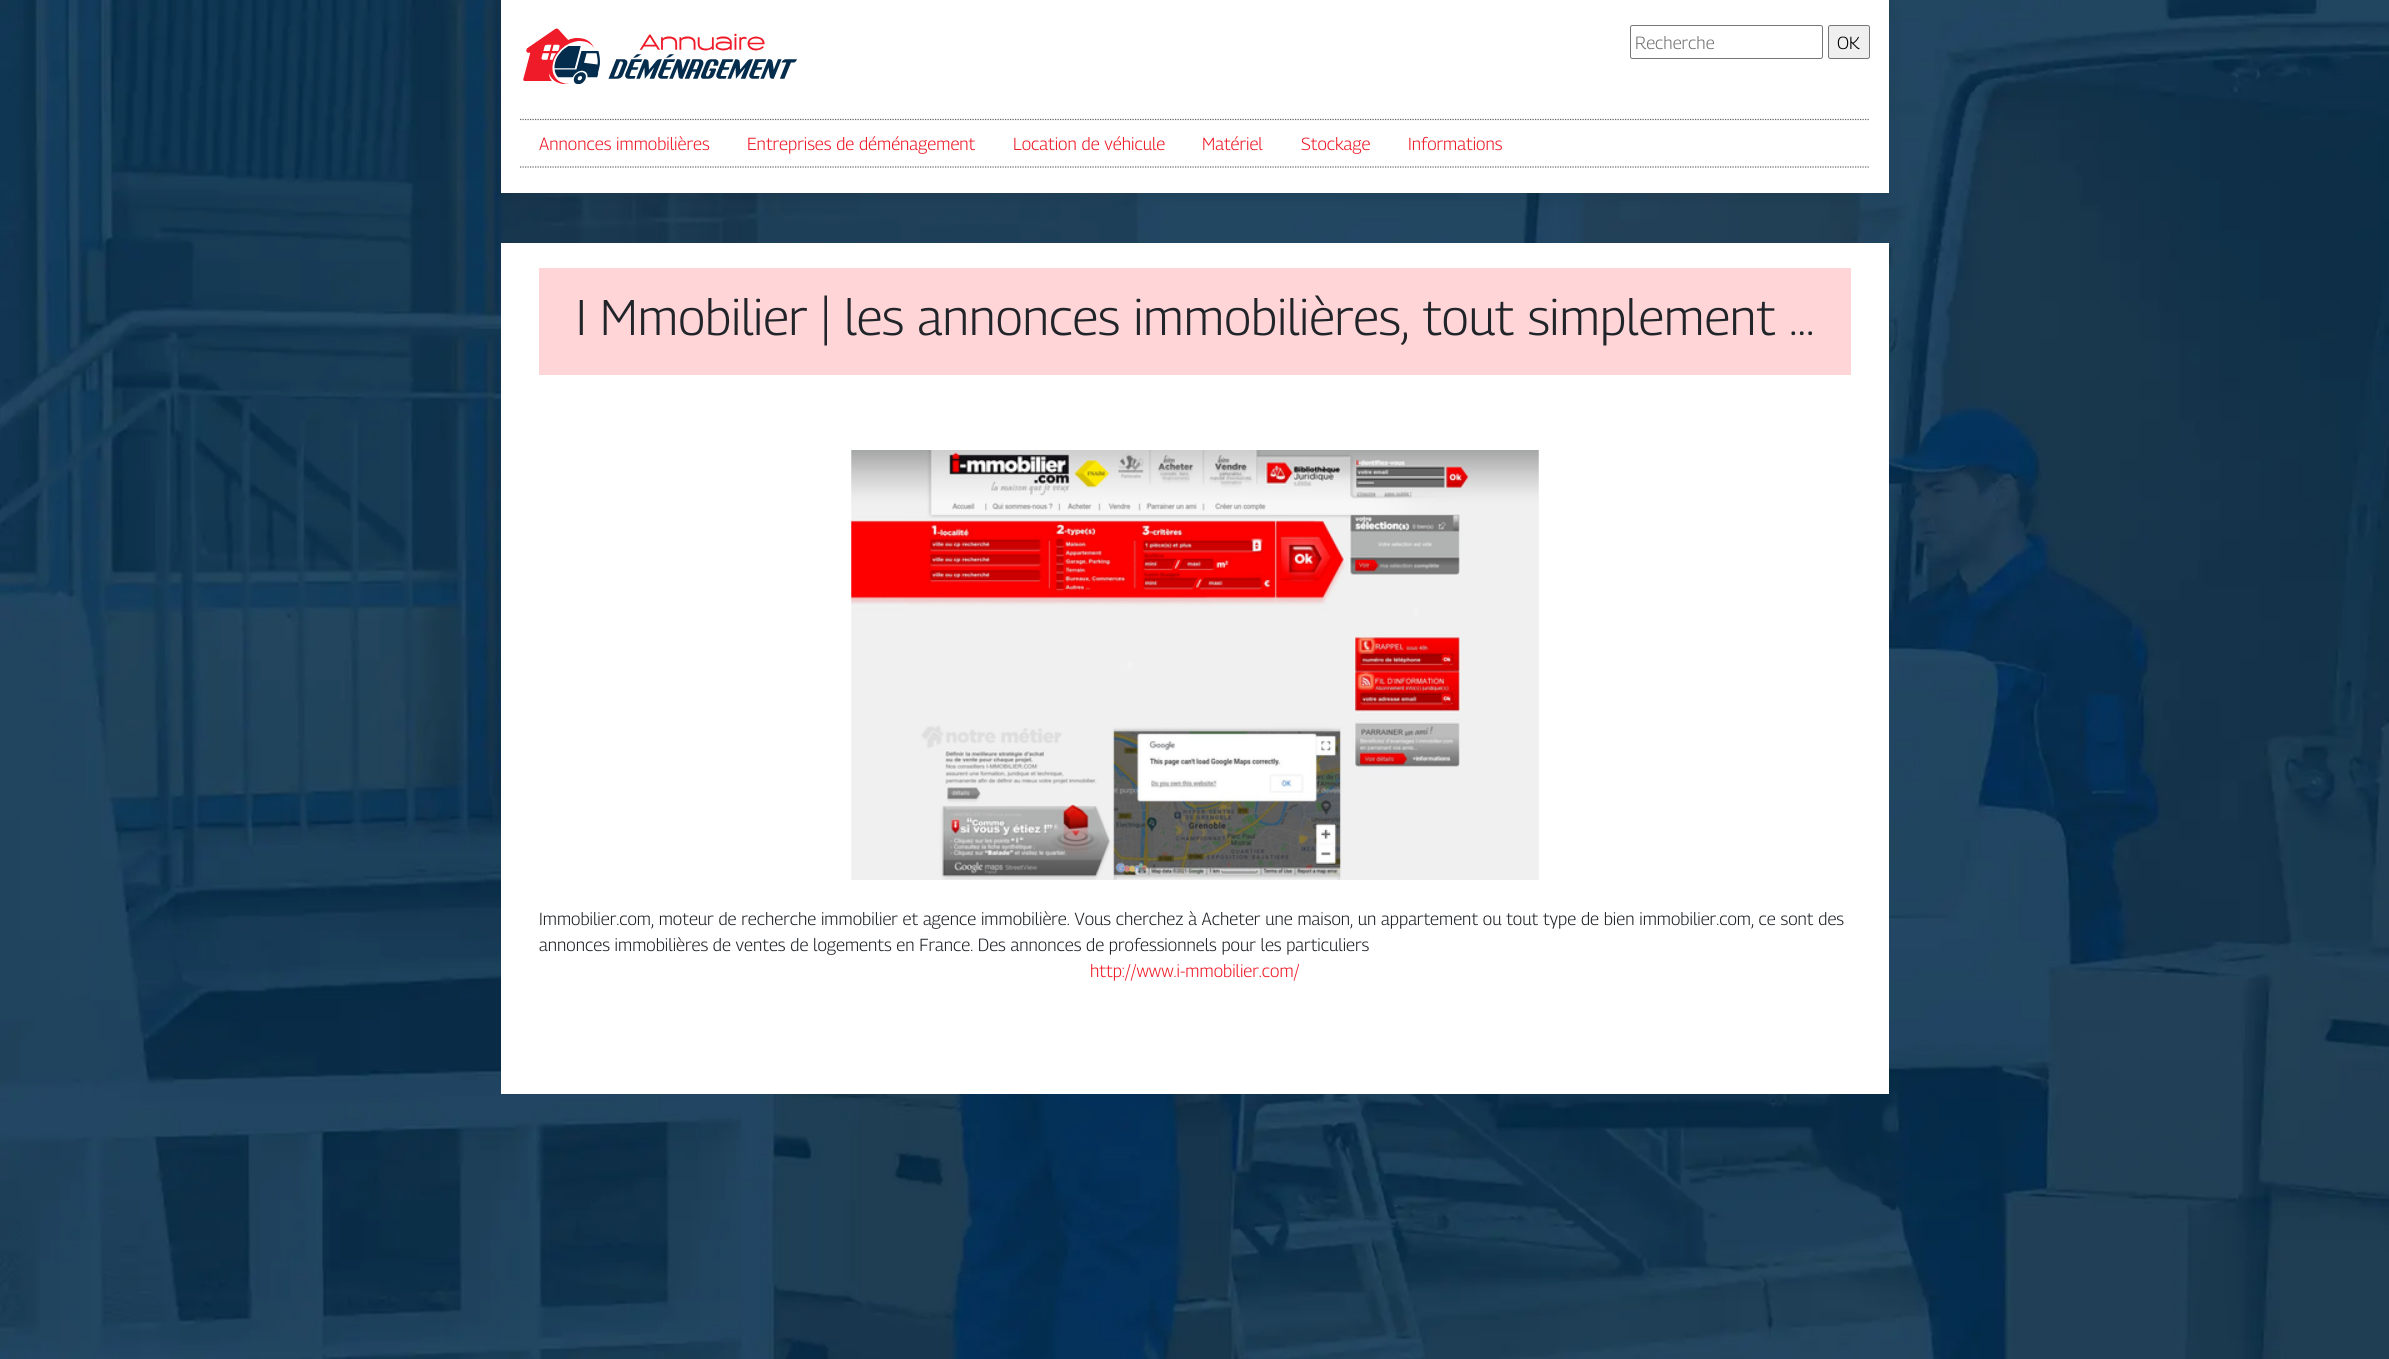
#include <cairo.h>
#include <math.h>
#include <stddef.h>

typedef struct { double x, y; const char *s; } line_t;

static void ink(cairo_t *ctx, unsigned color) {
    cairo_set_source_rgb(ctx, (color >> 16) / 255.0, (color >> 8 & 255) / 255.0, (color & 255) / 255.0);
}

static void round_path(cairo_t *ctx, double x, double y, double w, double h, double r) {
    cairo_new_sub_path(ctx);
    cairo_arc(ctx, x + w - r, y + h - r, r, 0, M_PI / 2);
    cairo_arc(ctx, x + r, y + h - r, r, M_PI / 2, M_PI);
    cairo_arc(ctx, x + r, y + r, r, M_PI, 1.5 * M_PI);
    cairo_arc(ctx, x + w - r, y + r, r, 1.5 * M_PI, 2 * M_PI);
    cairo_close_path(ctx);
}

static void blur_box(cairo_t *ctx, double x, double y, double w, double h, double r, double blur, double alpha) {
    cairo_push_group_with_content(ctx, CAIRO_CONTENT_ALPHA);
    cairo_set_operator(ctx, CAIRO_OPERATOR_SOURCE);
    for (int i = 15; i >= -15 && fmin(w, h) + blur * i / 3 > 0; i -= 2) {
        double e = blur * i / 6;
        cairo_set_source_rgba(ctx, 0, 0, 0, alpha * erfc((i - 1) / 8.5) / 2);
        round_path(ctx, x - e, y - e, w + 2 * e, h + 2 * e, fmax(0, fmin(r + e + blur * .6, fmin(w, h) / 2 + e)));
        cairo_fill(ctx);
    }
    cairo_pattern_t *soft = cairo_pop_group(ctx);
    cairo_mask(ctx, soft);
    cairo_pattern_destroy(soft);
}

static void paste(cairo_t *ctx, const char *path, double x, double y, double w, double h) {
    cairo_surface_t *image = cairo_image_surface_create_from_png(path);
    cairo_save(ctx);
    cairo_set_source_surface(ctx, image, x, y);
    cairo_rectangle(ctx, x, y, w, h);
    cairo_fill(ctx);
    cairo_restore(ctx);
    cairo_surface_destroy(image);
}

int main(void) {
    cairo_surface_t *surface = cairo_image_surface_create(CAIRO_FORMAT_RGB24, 2389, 1359);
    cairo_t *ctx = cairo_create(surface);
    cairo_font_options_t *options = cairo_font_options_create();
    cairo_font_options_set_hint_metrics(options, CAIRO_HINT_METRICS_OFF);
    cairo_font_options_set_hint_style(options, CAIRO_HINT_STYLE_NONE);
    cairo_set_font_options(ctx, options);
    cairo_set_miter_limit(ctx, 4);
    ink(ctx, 0xFFFFFF);
    cairo_paint(ctx);
    paste(ctx, "media/1.png", 0, 0, 2389, 1359);
    ink(ctx, 0x000000);
    blur_box(ctx, 501, 3, 1388, 192, 0, 8, 0.1);
    ink(ctx, 0xFFFFFF);
    cairo_rectangle(ctx, 501, 0, 1388, 193);
    cairo_fill(ctx);
    paste(ctx, "media/2.png", 523, 28, 274, 56);
    round_path(ctx, 1630.5, 25.5, 192, 33, 2);
    ink(ctx, 0x767676);
    cairo_set_line_width(ctx, 1);
    cairo_stroke(ctx);
    cairo_select_font_face(ctx, "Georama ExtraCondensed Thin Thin", CAIRO_FONT_SLANT_NORMAL, CAIRO_FONT_WEIGHT_NORMAL);
    cairo_set_font_size(ctx, 17.5);
    ink(ctx, 0x757575);
    cairo_move_to(ctx, 1635, 49);
    cairo_show_text(ctx, "Recherche");
    ink(ctx, 0xEFEFEF);
    round_path(ctx, 1828.5, 25.5, 41, 33, 2);
    cairo_fill_preserve(ctx);
    ink(ctx, 0x767676);
    cairo_stroke(ctx);
    ink(ctx, 0x000000);
    cairo_move_to(ctx, 1837, 49);
    cairo_show_text(ctx, "OK");
    cairo_new_path(ctx);
    cairo_move_to(ctx, 520, 119.5);
    cairo_line_to(ctx, 1870, 119.5);
    ink(ctx, 0x666666);
    cairo_set_line_width(ctx, 1.2);
    cairo_set_dash(ctx, (double[]){1.25, 1.25}, 2, 0);
    cairo_stroke(ctx);
    cairo_new_path(ctx);
    cairo_move_to(ctx, 520, 167);
    cairo_line_to(ctx, 1870, 167);
    cairo_stroke(ctx);
    ink(ctx, 0xEF1B28);
    {
        static const line_t items[] = {
            {539, 150, "Annonces immobilières"},
            {747, 150, "Entreprises de déménagement"},
            {1013, 150, "Location de véhicule"},
            {1202, 150, "Matériel"},
            {1301, 150, "Stockage"},
            {1408, 150, "Informations"},
        };
        for (size_t i = 0; i < sizeof items / sizeof *items; i++) {
            cairo_move_to(ctx, items[i].x, items[i].y);
            cairo_show_text(ctx, items[i].s);
        }
    }
    ink(ctx, 0xFFFFFF);
    cairo_rectangle(ctx, 501, 243, 1388, 851);
    cairo_fill(ctx);
    ink(ctx, 0xFFD5D8);
    cairo_rectangle(ctx, 539, 268, 1312, 107);
    cairo_fill(ctx);
    cairo_set_font_size(ctx, 50);
    ink(ctx, 0x212529);
    cairo_move_to(ctx, 576, 335);
    cairo_show_text(ctx, "I Mmobilier | les annonces immobilières, tout simplement …");
    paste(ctx, "media/3.png", 851, 450, 688, 430);
    cairo_set_font_size(ctx, 17.5);
    cairo_move_to(ctx, 539, 925);
    cairo_show_text(ctx, "Immobilier.com, moteur de recherche immobilier et agence immobilière. Vous cherchez à Acheter une maison, un appartement ou tout type de bien immobilier.com, ce sont des");
    cairo_move_to(ctx, 539, 951);
    cairo_show_text(ctx, "annonces immobilières de ventes de logements en France. Des annonces de professionnels pour les particuliers");
    ink(ctx, 0xEF1B28);
    cairo_move_to(ctx, 1090, 977);
    cairo_show_text(ctx, "http://www.i-mmobilier.com/");
    cairo_surface_write_to_png(surface, "image.png");
    cairo_font_options_destroy(options);
    cairo_destroy(ctx);
    cairo_surface_destroy(surface);
    return 0;
}
